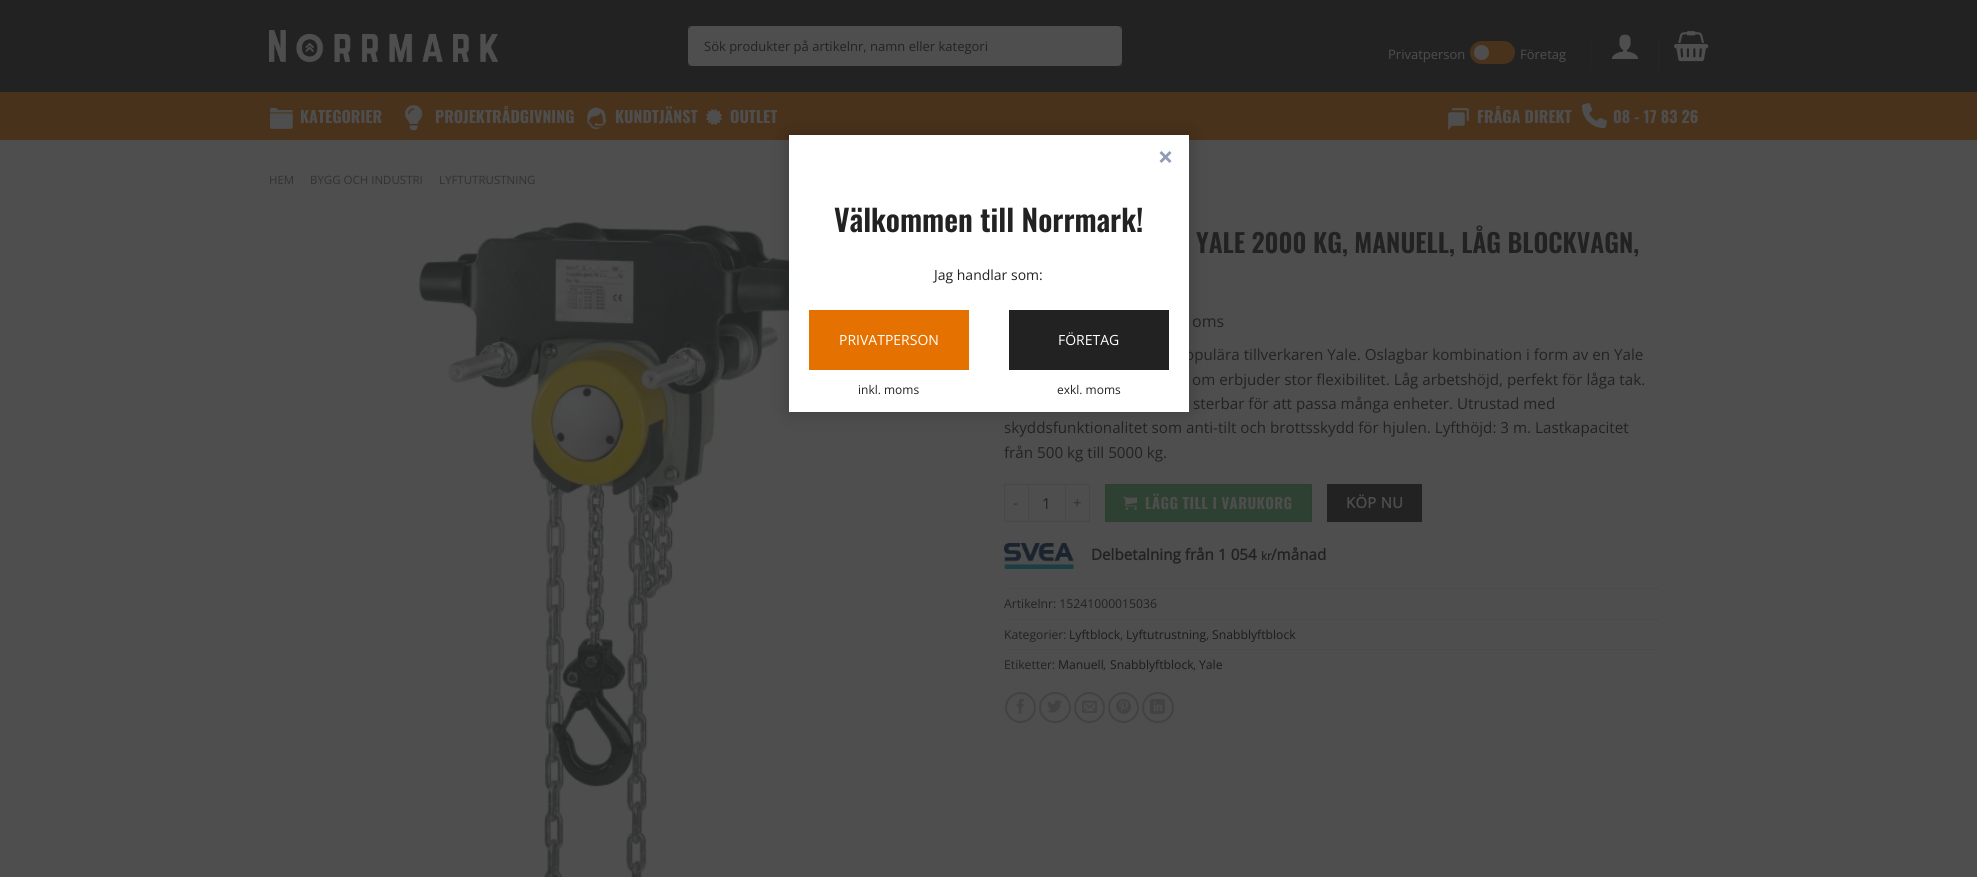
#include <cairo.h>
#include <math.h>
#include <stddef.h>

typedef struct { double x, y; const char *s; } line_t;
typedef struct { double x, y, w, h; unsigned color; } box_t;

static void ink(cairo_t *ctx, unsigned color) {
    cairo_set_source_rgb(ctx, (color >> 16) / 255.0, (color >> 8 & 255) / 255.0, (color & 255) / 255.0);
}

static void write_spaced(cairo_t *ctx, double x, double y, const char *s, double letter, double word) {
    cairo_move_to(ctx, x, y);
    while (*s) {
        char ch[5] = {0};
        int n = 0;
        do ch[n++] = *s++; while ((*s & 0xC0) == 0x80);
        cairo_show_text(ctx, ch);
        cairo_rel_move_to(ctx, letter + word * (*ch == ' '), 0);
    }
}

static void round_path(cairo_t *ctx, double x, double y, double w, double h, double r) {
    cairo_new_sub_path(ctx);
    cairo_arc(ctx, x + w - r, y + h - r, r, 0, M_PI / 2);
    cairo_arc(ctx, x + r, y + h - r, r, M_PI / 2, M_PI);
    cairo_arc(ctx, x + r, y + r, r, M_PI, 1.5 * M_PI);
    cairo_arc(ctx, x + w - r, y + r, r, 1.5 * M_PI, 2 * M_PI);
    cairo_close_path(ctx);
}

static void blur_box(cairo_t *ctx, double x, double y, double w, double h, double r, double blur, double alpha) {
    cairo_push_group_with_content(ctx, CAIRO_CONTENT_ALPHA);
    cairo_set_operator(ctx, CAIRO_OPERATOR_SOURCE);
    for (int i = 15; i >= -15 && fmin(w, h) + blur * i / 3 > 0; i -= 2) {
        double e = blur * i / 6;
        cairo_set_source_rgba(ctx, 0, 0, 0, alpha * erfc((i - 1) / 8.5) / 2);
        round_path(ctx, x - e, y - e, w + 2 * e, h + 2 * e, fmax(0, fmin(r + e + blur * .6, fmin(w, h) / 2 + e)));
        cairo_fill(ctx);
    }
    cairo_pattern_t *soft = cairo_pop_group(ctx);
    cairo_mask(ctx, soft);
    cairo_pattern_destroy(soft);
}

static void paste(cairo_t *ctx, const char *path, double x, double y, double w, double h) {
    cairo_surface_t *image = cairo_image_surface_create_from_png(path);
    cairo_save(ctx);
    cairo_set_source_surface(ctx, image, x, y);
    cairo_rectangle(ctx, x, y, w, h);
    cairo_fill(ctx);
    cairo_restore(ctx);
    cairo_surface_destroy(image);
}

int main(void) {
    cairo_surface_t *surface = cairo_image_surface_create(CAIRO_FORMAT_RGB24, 1977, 877);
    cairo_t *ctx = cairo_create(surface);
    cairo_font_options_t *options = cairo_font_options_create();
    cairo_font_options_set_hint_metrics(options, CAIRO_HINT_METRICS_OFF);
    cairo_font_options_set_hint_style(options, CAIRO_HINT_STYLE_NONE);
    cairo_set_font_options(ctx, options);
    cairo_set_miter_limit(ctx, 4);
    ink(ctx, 0x4E4E4E);
    cairo_paint(ctx);
    ink(ctx, 0x222222);
    cairo_rectangle(ctx, 0, 0, 1977, 92);
    cairo_fill(ctx);
    ink(ctx, 0x2B2B2B);
    cairo_rectangle(ctx, 688, 26, 434, 40);
    cairo_fill(ctx);
    paste(ctx, "media/1.png", 269, 30, 229, 32);
    ink(ctx, 0x4E4E4E);
    round_path(ctx, 688, 26, 434, 40, 5);
    cairo_fill(ctx);
    cairo_rectangle(ctx, 688.5, 26.5, 433, 39);
    cairo_set_source_rgba(ctx, 0.306, 0.306, 0.306, 0.09);
    cairo_set_line_width(ctx, 1);
    cairo_stroke(ctx);
    cairo_select_font_face(ctx, "Open Sans", CAIRO_FONT_SLANT_NORMAL, CAIRO_FONT_WEIGHT_NORMAL);
    cairo_set_font_size(ctx, 13);
    ink(ctx, 0x222222);
    cairo_move_to(ctx, 704, 51);
    cairo_show_text(ctx, "Sök produkter på artikelnr, namn eller kategori");
    ink(ctx, 0x4E4E4E);
    cairo_move_to(ctx, 1388, 59);
    cairo_show_text(ctx, "Privatperson");
    ink(ctx, 0x49321B);
    round_path(ctx, 1470, 41, 45, 23, 11.5);
    cairo_fill(ctx);
    ink(ctx, 0x4E4E4E);
    cairo_arc(ctx, 1481.5, 52.5, 7.5, 0, 2 * M_PI);
    cairo_fill(ctx);
    cairo_move_to(ctx, 1520, 59);
    cairo_show_text(ctx, "Företag");
    ink(ctx, 0x262626);
    cairo_rectangle(ctx, 1590, 40, 1, 30);
    cairo_fill(ctx);
    paste(ctx, "media/2.png", 1611, 34, 28, 25);
    cairo_rectangle(ctx, 1658, 40, 1, 30);
    cairo_fill(ctx);
    paste(ctx, "media/3.png", 1674, 31, 35, 31);
    ink(ctx, 0x49321B);
    cairo_rectangle(ctx, 0, 92, 1977, 48);
    cairo_fill(ctx);
    paste(ctx, "media/4.png", 270, 108, 23, 21);
    cairo_select_font_face(ctx, "Oswald", CAIRO_FONT_SLANT_NORMAL, CAIRO_FONT_WEIGHT_BOLD);
    cairo_set_font_size(ctx, 16);
    ink(ctx, 0x4E4E4E);
    cairo_move_to(ctx, 300, 123);
    cairo_show_text(ctx, "KATEGORIER");
    paste(ctx, "media/5.png", 405, 105, 18, 26);
    cairo_move_to(ctx, 435, 123);
    cairo_show_text(ctx, "PROJEKTRÅDGIVNING");
    paste(ctx, "media/6.png", 587, 107, 20, 23);
    cairo_move_to(ctx, 615, 123);
    cairo_show_text(ctx, "KUNDTJÄNST");
    paste(ctx, "media/7.png", 706, 109, 16, 16);
    cairo_move_to(ctx, 730, 123);
    cairo_show_text(ctx, "OUTLET");
    paste(ctx, "media/8.png", 1448, 108, 21, 22);
    cairo_move_to(ctx, 1477, 123);
    cairo_show_text(ctx, "FRÅGA DIREKT");
    paste(ctx, "media/9.png", 1582, 103, 25, 26);
    cairo_move_to(ctx, 1613, 123);
    cairo_show_text(ctx, "08 - 17 83 26");
    cairo_select_font_face(ctx, "Open Sans", CAIRO_FONT_SLANT_NORMAL, CAIRO_FONT_WEIGHT_NORMAL);
    cairo_set_font_size(ctx, 11.5);
    ink(ctx, 0x313131);
    {
        static const line_t items[] = {
            {269, 184, "HEM"},
            {310, 184, "BYGG OCH INDUSTRI"},
            {439, 184, "LYFTUTRUSTNING"},
        };
        for (size_t i = 0; i < sizeof items / sizeof *items; i++) {
            cairo_move_to(ctx, items[i].x, items[i].y);
            cairo_show_text(ctx, items[i].s);
        }
    }
    paste(ctx, "media/10.png", 418, 220, 406, 657);
    cairo_select_font_face(ctx, "Oswald SemiBold", CAIRO_FONT_SLANT_NORMAL, CAIRO_FONT_WEIGHT_NORMAL);
    cairo_set_font_size(ctx, 25.8);
    ink(ctx, 0x222222);
    cairo_move_to(ctx, 1196, 253);
    cairo_show_text(ctx, "YALE 2000 KG, MANUELL, LÅG BLOCKVAGN,");
    cairo_select_font_face(ctx, "Open Sans", CAIRO_FONT_SLANT_NORMAL, CAIRO_FONT_WEIGHT_NORMAL);
    cairo_set_font_size(ctx, 16);
    cairo_move_to(ctx, 1192, 327);
    cairo_show_text(ctx, "oms");
    cairo_set_font_size(ctx, 15.2);
    {
        static const line_t items[] = {
            {1185, 360, "opulära tillverkaren Yale. Oslagbar kombination i form av en Yale"},
            {1192, 385, "om erbjuder stor flexibilitet. Låg arbetshöjd, perfekt för låga tak."},
            {1193, 409, "sterbar för att passa många enheter. Utrustad med"},
            {1004, 433, "skyddsfunktionalitet som anti-tilt och brottsskydd för hjulen. Lyfthöjd: 3 m. Lastkapacitet"},
            {1004, 458, "från 500 kg till 5000 kg."},
        };
        for (size_t i = 0; i < sizeof items / sizeof *items; i++) {
            cairo_move_to(ctx, items[i].x, items[i].y);
            cairo_show_text(ctx, items[i].s);
        }
    }
    {
        static const box_t items[] = {
            {1004, 484, 24, 1, 0x474747},
            {1004, 521, 24, 1, 0x474747},
            {1004, 484, 1, 38, 0x474747},
        };
        for (size_t i = 0; i < sizeof items / sizeof *items; i++) {
            ink(ctx, items[i].color);
            cairo_rectangle(ctx, items[i].x, items[i].y, items[i].w, items[i].h);
            cairo_fill(ctx);
        }
    }
    cairo_set_font_size(ctx, 14.75);
    ink(ctx, 0x313131);
    write_spaced(ctx, 1013, 508, "-", 0.4, 0);
    cairo_rectangle(ctx, 1028.5, 484.5, 37, 37);
    ink(ctx, 0x474747);
    cairo_stroke(ctx);
    cairo_set_font_size(ctx, 15.2);
    ink(ctx, 0x222222);
    cairo_move_to(ctx, 1042, 509);
    cairo_show_text(ctx, "1");
    {
        static const box_t items[] = {
            {1066, 484, 24, 1, 0x474747},
            {1089, 484, 1, 38, 0x474747},
            {1066, 521, 24, 1, 0x474747},
        };
        for (size_t i = 0; i < sizeof items / sizeof *items; i++) {
            ink(ctx, items[i].color);
            cairo_rectangle(ctx, items[i].x, items[i].y, items[i].w, items[i].h);
            cairo_fill(ctx);
        }
    }
    cairo_set_font_size(ctx, 14.75);
    ink(ctx, 0x313131);
    write_spaced(ctx, 1073, 508, "+", 0.4, 0);
    ink(ctx, 0x2E4031);
    cairo_rectangle(ctx, 1105.5, 484.5, 206, 37);
    cairo_fill_preserve(ctx);
    ink(ctx, 0x2D3E30);
    cairo_stroke(ctx);
    paste(ctx, "media/11.png", 1123, 496, 14, 14);
    cairo_select_font_face(ctx, "Oswald", CAIRO_FONT_SLANT_NORMAL, CAIRO_FONT_WEIGHT_BOLD);
    ink(ctx, 0x4E4E4E);
    write_spaced(ctx, 1145, 509, "LÄGG TILL I VARUKORG", 0.4, 0);
    ink(ctx, 0x222222);
    cairo_rectangle(ctx, 1327.5, 484.5, 94, 37);
    cairo_fill_preserve(ctx);
    cairo_stroke(ctx);
    cairo_select_font_face(ctx, "Open Sans", CAIRO_FONT_SLANT_NORMAL, CAIRO_FONT_WEIGHT_BOLD);
    ink(ctx, 0x4E4E4E);
    write_spaced(ctx, 1346, 508, "KÖP NU", 0.4, 0);
    paste(ctx, "media/12.png", 1004, 543, 70, 26);
    cairo_set_font_size(ctx, 15.2);
    ink(ctx, 0x222222);
    cairo_move_to(ctx, 1091, 560);
    cairo_show_text(ctx, "Delbetalning från");
    cairo_move_to(ctx, 1218, 560);
    cairo_show_text(ctx, "1 054");
    cairo_set_font_size(ctx, 11.5);
    cairo_move_to(ctx, 1261, 560);
    cairo_show_text(ctx, "kr");
    cairo_set_font_size(ctx, 15.2);
    cairo_move_to(ctx, 1271, 560);
    cairo_show_text(ctx, "/månad");
    cairo_new_path(ctx);
    cairo_move_to(ctx, 1004, 588.5);
    cairo_line_to(ctx, 1659, 588.5);
    ink(ctx, 0x474747);
    cairo_set_dash(ctx, (double[]){1, 1}, 2, 0);
    cairo_stroke(ctx);
    cairo_select_font_face(ctx, "Open Sans", CAIRO_FONT_SLANT_NORMAL, CAIRO_FONT_WEIGHT_NORMAL);
    cairo_set_font_size(ctx, 12.2);
    ink(ctx, 0x222222);
    cairo_move_to(ctx, 1004, 608);
    cairo_show_text(ctx, "Artikelnr: 15241000015036");
    cairo_new_path(ctx);
    cairo_move_to(ctx, 1004, 619.5);
    cairo_line_to(ctx, 1659, 619.5);
    ink(ctx, 0x474747);
    cairo_stroke(ctx);
    ink(ctx, 0x222222);
    cairo_move_to(ctx, 1004, 639);
    cairo_show_text(ctx, "Kategorier:");
    ink(ctx, 0x1B1B1B);
    cairo_move_to(ctx, 1069, 639);
    cairo_show_text(ctx, "Lyftblock");
    ink(ctx, 0x222222);
    cairo_move_to(ctx, 1120, 639);
    cairo_show_text(ctx, ",");
    ink(ctx, 0x1B1B1B);
    cairo_move_to(ctx, 1126, 639);
    cairo_show_text(ctx, "Lyftutrustning");
    ink(ctx, 0x222222);
    cairo_move_to(ctx, 1206, 639);
    cairo_show_text(ctx, ",");
    ink(ctx, 0x1B1B1B);
    cairo_move_to(ctx, 1212, 639);
    cairo_show_text(ctx, "Snabblyftblock");
    cairo_new_path(ctx);
    cairo_move_to(ctx, 1004, 649.5);
    cairo_line_to(ctx, 1659, 649.5);
    ink(ctx, 0x474747);
    cairo_stroke(ctx);
    ink(ctx, 0x222222);
    cairo_move_to(ctx, 1004, 669);
    cairo_show_text(ctx, "Etiketter:");
    ink(ctx, 0x1B1B1B);
    cairo_move_to(ctx, 1058, 669);
    cairo_show_text(ctx, "Manuell");
    ink(ctx, 0x222222);
    cairo_move_to(ctx, 1103, 669);
    cairo_show_text(ctx, ",");
    ink(ctx, 0x1B1B1B);
    cairo_move_to(ctx, 1110, 669);
    cairo_show_text(ctx, "Snabblyftblock");
    ink(ctx, 0x222222);
    cairo_move_to(ctx, 1193, 669);
    cairo_show_text(ctx, ",");
    ink(ctx, 0x1B1B1B);
    cairo_move_to(ctx, 1199, 669);
    cairo_show_text(ctx, "Yale");
    cairo_new_path(ctx);
    cairo_arc(ctx, 1020.5, 707.5, 14.5, 0, 2 * M_PI);
    ink(ctx, 0x424242);
    cairo_set_line_width(ctx, 2);
    cairo_set_dash(ctx, NULL, 0, 0);
    cairo_stroke(ctx);
    paste(ctx, "media/13.png", 1016, 698, 8, 16);
    round_path(ctx, 1040, 693, 30, 29, 14.5);
    cairo_stroke(ctx);
    paste(ctx, "media/14.png", 1047, 700, 15, 13);
    cairo_arc(ctx, 1089.5, 707.5, 14.5, 0, 2 * M_PI);
    cairo_stroke(ctx);
    paste(ctx, "media/15.png", 1082, 700, 15, 13);
    cairo_arc(ctx, 1123.5, 707.5, 14.5, 0, 2 * M_PI);
    cairo_stroke(ctx);
    paste(ctx, "media/16.png", 1116, 698, 15, 16);
    round_path(ctx, 1143, 693, 30, 29, 14.5);
    cairo_stroke(ctx);
    paste(ctx, "media/17.png", 1150, 698, 15, 16);
    ink(ctx, 0x000000);
    blur_box(ctx, 789, 135, 400, 277, 0, 10, 0.2);
    ink(ctx, 0xFFFFFF);
    cairo_rectangle(ctx, 789, 135, 400, 277);
    cairo_fill(ctx);
    ink(ctx, 0x8F9CB5);
    cairo_new_path(ctx);
    cairo_move_to(ctx, 1161.5, 151);
    cairo_line_to(ctx, 1171.5, 161);
    cairo_line_to(ctx, 1169.5, 163);
    cairo_line_to(ctx, 1159.5, 153);
    cairo_close_path(ctx);
    cairo_fill(ctx);
    cairo_new_path(ctx);
    cairo_move_to(ctx, 1159.5, 161);
    cairo_line_to(ctx, 1169.5, 151);
    cairo_line_to(ctx, 1171.5, 153);
    cairo_line_to(ctx, 1161.5, 163);
    cairo_close_path(ctx);
    cairo_fill(ctx);
    cairo_select_font_face(ctx, "Oswald SemiBold", CAIRO_FONT_SLANT_NORMAL, CAIRO_FONT_WEIGHT_NORMAL);
    cairo_set_font_size(ctx, 30);
    ink(ctx, 0x222222);
    cairo_move_to(ctx, 834, 232);
    cairo_show_text(ctx, "Välkommen till Norrmark!");
    cairo_select_font_face(ctx, "Open Sans", CAIRO_FONT_SLANT_NORMAL, CAIRO_FONT_WEIGHT_NORMAL);
    cairo_set_font_size(ctx, 14);
    cairo_move_to(ctx, 934, 280);
    cairo_show_text(ctx, "Jag handlar som:");
    ink(ctx, 0xE57200);
    cairo_rectangle(ctx, 809, 310, 160, 60);
    cairo_fill(ctx);
    ink(ctx, 0xFFFFFF);
    cairo_move_to(ctx, 839, 345);
    cairo_show_text(ctx, "PRIVATPERSON");
    cairo_set_font_size(ctx, 12);
    ink(ctx, 0x222222);
    cairo_move_to(ctx, 858, 394);
    cairo_show_text(ctx, "inkl. moms");
    cairo_rectangle(ctx, 1009, 310, 160, 60);
    cairo_fill(ctx);
    cairo_set_font_size(ctx, 14);
    ink(ctx, 0xFFFFFF);
    cairo_move_to(ctx, 1058, 345);
    cairo_show_text(ctx, "FÖRETAG");
    cairo_set_font_size(ctx, 12);
    ink(ctx, 0x222222);
    cairo_move_to(ctx, 1057, 394);
    cairo_show_text(ctx, "exkl. moms");
    cairo_surface_write_to_png(surface, "image.png");
    cairo_font_options_destroy(options);
    cairo_destroy(ctx);
    cairo_surface_destroy(surface);
    return 0;
}
